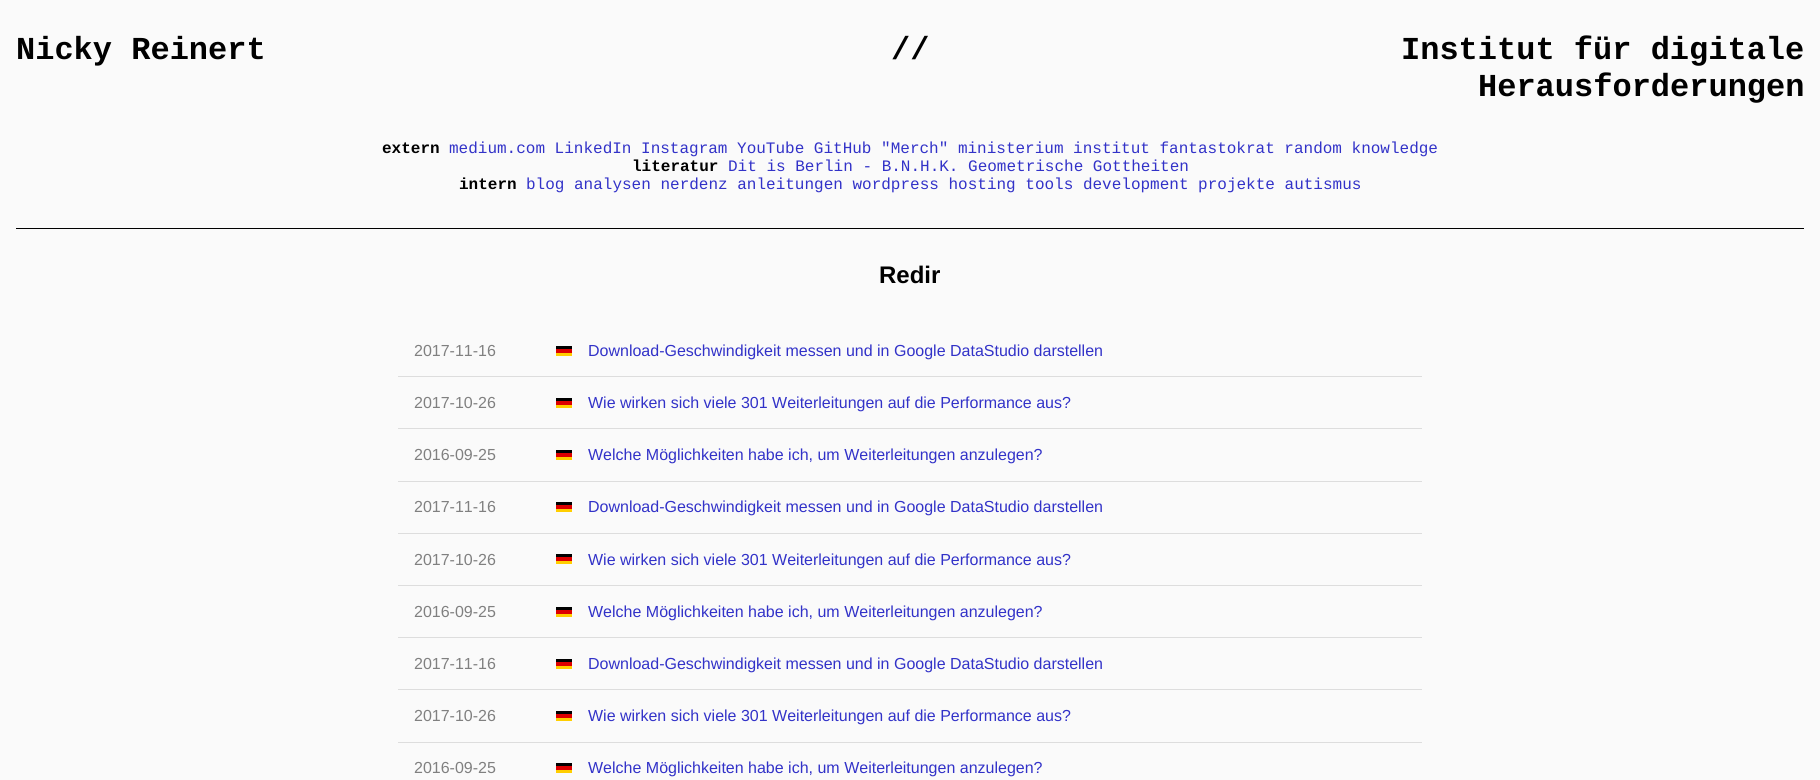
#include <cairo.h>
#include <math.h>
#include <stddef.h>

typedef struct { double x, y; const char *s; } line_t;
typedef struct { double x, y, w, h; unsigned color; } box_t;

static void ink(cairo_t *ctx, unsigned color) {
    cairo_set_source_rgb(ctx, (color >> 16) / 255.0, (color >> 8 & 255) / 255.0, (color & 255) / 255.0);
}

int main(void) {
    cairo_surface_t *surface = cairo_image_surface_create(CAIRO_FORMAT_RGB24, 1820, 780);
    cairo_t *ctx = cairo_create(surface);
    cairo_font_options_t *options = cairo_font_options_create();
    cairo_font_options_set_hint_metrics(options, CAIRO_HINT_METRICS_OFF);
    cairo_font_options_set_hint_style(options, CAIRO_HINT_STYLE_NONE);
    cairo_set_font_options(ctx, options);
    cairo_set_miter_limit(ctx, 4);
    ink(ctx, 0xFAFAFA);
    cairo_paint(ctx);
    ink(ctx, 0x000000);
    cairo_rectangle(ctx, 16, 228, 1788, 1);
    cairo_fill(ctx);
    cairo_select_font_face(ctx, "Liberation Mono", CAIRO_FONT_SLANT_NORMAL, CAIRO_FONT_WEIGHT_BOLD);
    cairo_set_font_size(ctx, 32);
    {
        static const line_t items[] = {
            {16, 59, "Nicky Reinert"},
            {891, 59, "//"},
            {1401, 59, "Institut für digitale"},
            {1478, 96, "Herausforderungen"},
        };
        for (size_t i = 0; i < sizeof items / sizeof *items; i++) {
            cairo_move_to(ctx, items[i].x, items[i].y);
            cairo_show_text(ctx, items[i].s);
        }
    }
    cairo_set_font_size(ctx, 16);
    cairo_move_to(ctx, 382, 153);
    cairo_show_text(ctx, "extern");
    cairo_select_font_face(ctx, "Liberation Mono", CAIRO_FONT_SLANT_NORMAL, CAIRO_FONT_WEIGHT_NORMAL);
    ink(ctx, 0x3232C8);
    cairo_move_to(ctx, 449, 153);
    cairo_show_text(ctx, "medium.com LinkedIn Instagram YouTube GitHub \"Merch\" ministerium institut fantastokrat random knowledge");
    cairo_select_font_face(ctx, "Liberation Mono", CAIRO_FONT_SLANT_NORMAL, CAIRO_FONT_WEIGHT_BOLD);
    ink(ctx, 0x000000);
    cairo_move_to(ctx, 632, 171);
    cairo_show_text(ctx, "literatur");
    cairo_select_font_face(ctx, "Liberation Mono", CAIRO_FONT_SLANT_NORMAL, CAIRO_FONT_WEIGHT_NORMAL);
    ink(ctx, 0x3232C8);
    cairo_move_to(ctx, 728, 171);
    cairo_show_text(ctx, "Dit is Berlin - B.N.H.K. Geometrische Gottheiten");
    cairo_select_font_face(ctx, "Liberation Mono", CAIRO_FONT_SLANT_NORMAL, CAIRO_FONT_WEIGHT_BOLD);
    ink(ctx, 0x000000);
    cairo_move_to(ctx, 459, 189);
    cairo_show_text(ctx, "intern");
    cairo_select_font_face(ctx, "Liberation Mono", CAIRO_FONT_SLANT_NORMAL, CAIRO_FONT_WEIGHT_NORMAL);
    ink(ctx, 0x3232C8);
    cairo_move_to(ctx, 526, 189);
    cairo_show_text(ctx, "blog analysen nerdenz anleitungen wordpress hosting tools development projekte autismus");
    cairo_select_font_face(ctx, "Liberation Sans", CAIRO_FONT_SLANT_NORMAL, CAIRO_FONT_WEIGHT_BOLD);
    cairo_set_font_size(ctx, 24);
    ink(ctx, 0x000000);
    cairo_move_to(ctx, 879, 283);
    cairo_show_text(ctx, "Redir");
    ink(ctx, 0xDDDDDD);
    cairo_rectangle(ctx, 398, 376, 1024, 1);
    cairo_fill(ctx);
    cairo_select_font_face(ctx, "Liberation Sans", CAIRO_FONT_SLANT_NORMAL, CAIRO_FONT_WEIGHT_NORMAL);
    cairo_set_font_size(ctx, 16);
    ink(ctx, 0x808080);
    cairo_move_to(ctx, 414, 356);
    cairo_show_text(ctx, "2017-11-16");
    {
        static const box_t items[] = {
            {556, 353, 16, 3, 0xFFCE00},
            {556, 349, 16, 4, 0xDD0000},
            {556, 346, 16, 3, 0x000000},
        };
        for (size_t i = 0; i < sizeof items / sizeof *items; i++) {
            ink(ctx, items[i].color);
            cairo_rectangle(ctx, items[i].x, items[i].y, items[i].w, items[i].h);
            cairo_fill(ctx);
        }
    }
    ink(ctx, 0x3232C8);
    cairo_move_to(ctx, 588, 356);
    cairo_show_text(ctx, "Download-Geschwindigkeit messen und in Google DataStudio darstellen");
    ink(ctx, 0xDDDDDD);
    cairo_rectangle(ctx, 398, 428, 1024, 1);
    cairo_fill(ctx);
    ink(ctx, 0x808080);
    cairo_move_to(ctx, 414, 408);
    cairo_show_text(ctx, "2017-10-26");
    {
        static const box_t items[] = {
            {556, 405, 16, 3, 0xFFCE00},
            {556, 401, 16, 4, 0xDD0000},
            {556, 398, 16, 3, 0x000000},
        };
        for (size_t i = 0; i < sizeof items / sizeof *items; i++) {
            ink(ctx, items[i].color);
            cairo_rectangle(ctx, items[i].x, items[i].y, items[i].w, items[i].h);
            cairo_fill(ctx);
        }
    }
    ink(ctx, 0x3232C8);
    cairo_move_to(ctx, 588, 408);
    cairo_show_text(ctx, "Wie wirken sich viele 301 Weiterleitungen auf die Performance aus?");
    ink(ctx, 0xDDDDDD);
    cairo_rectangle(ctx, 398, 481, 1024, 1);
    cairo_fill(ctx);
    ink(ctx, 0x808080);
    cairo_move_to(ctx, 414, 460);
    cairo_show_text(ctx, "2016-09-25");
    {
        static const box_t items[] = {
            {556, 457, 16, 3, 0xFFCE00},
            {556, 453, 16, 4, 0xDD0000},
            {556, 450, 16, 3, 0x000000},
        };
        for (size_t i = 0; i < sizeof items / sizeof *items; i++) {
            ink(ctx, items[i].color);
            cairo_rectangle(ctx, items[i].x, items[i].y, items[i].w, items[i].h);
            cairo_fill(ctx);
        }
    }
    ink(ctx, 0x3232C8);
    cairo_move_to(ctx, 588, 460);
    cairo_show_text(ctx, "Welche Möglichkeiten habe ich, um Weiterleitungen anzulegen?");
    ink(ctx, 0xDDDDDD);
    cairo_rectangle(ctx, 398, 533, 1024, 1);
    cairo_fill(ctx);
    ink(ctx, 0x808080);
    cairo_move_to(ctx, 414, 512);
    cairo_show_text(ctx, "2017-11-16");
    {
        static const box_t items[] = {
            {556, 509, 16, 3, 0xFFCE00},
            {556, 505, 16, 4, 0xDD0000},
            {556, 502, 16, 3, 0x000000},
        };
        for (size_t i = 0; i < sizeof items / sizeof *items; i++) {
            ink(ctx, items[i].color);
            cairo_rectangle(ctx, items[i].x, items[i].y, items[i].w, items[i].h);
            cairo_fill(ctx);
        }
    }
    ink(ctx, 0x3232C8);
    cairo_move_to(ctx, 588, 512);
    cairo_show_text(ctx, "Download-Geschwindigkeit messen und in Google DataStudio darstellen");
    ink(ctx, 0xDDDDDD);
    cairo_rectangle(ctx, 398, 585, 1024, 1);
    cairo_fill(ctx);
    ink(ctx, 0x808080);
    cairo_move_to(ctx, 414, 565);
    cairo_show_text(ctx, "2017-10-26");
    {
        static const box_t items[] = {
            {556, 561, 16, 3, 0xFFCE00},
            {556, 557, 16, 4, 0xDD0000},
            {556, 554, 16, 3, 0x000000},
        };
        for (size_t i = 0; i < sizeof items / sizeof *items; i++) {
            ink(ctx, items[i].color);
            cairo_rectangle(ctx, items[i].x, items[i].y, items[i].w, items[i].h);
            cairo_fill(ctx);
        }
    }
    ink(ctx, 0x3232C8);
    cairo_move_to(ctx, 588, 565);
    cairo_show_text(ctx, "Wie wirken sich viele 301 Weiterleitungen auf die Performance aus?");
    ink(ctx, 0xDDDDDD);
    cairo_rectangle(ctx, 398, 637, 1024, 1);
    cairo_fill(ctx);
    ink(ctx, 0x808080);
    cairo_move_to(ctx, 414, 617);
    cairo_show_text(ctx, "2016-09-25");
    {
        static const box_t items[] = {
            {556, 614, 16, 3, 0xFFCE00},
            {556, 610, 16, 4, 0xDD0000},
            {556, 607, 16, 3, 0x000000},
        };
        for (size_t i = 0; i < sizeof items / sizeof *items; i++) {
            ink(ctx, items[i].color);
            cairo_rectangle(ctx, items[i].x, items[i].y, items[i].w, items[i].h);
            cairo_fill(ctx);
        }
    }
    ink(ctx, 0x3232C8);
    cairo_move_to(ctx, 588, 617);
    cairo_show_text(ctx, "Welche Möglichkeiten habe ich, um Weiterleitungen anzulegen?");
    ink(ctx, 0xDDDDDD);
    cairo_rectangle(ctx, 398, 689, 1024, 1);
    cairo_fill(ctx);
    ink(ctx, 0x808080);
    cairo_move_to(ctx, 414, 669);
    cairo_show_text(ctx, "2017-11-16");
    {
        static const box_t items[] = {
            {556, 666, 16, 3, 0xFFCE00},
            {556, 662, 16, 4, 0xDD0000},
            {556, 659, 16, 3, 0x000000},
        };
        for (size_t i = 0; i < sizeof items / sizeof *items; i++) {
            ink(ctx, items[i].color);
            cairo_rectangle(ctx, items[i].x, items[i].y, items[i].w, items[i].h);
            cairo_fill(ctx);
        }
    }
    ink(ctx, 0x3232C8);
    cairo_move_to(ctx, 588, 669);
    cairo_show_text(ctx, "Download-Geschwindigkeit messen und in Google DataStudio darstellen");
    ink(ctx, 0xDDDDDD);
    cairo_rectangle(ctx, 398, 742, 1024, 1);
    cairo_fill(ctx);
    ink(ctx, 0x808080);
    cairo_move_to(ctx, 414, 721);
    cairo_show_text(ctx, "2017-10-26");
    {
        static const box_t items[] = {
            {556, 718, 16, 3, 0xFFCE00},
            {556, 714, 16, 4, 0xDD0000},
            {556, 711, 16, 3, 0x000000},
        };
        for (size_t i = 0; i < sizeof items / sizeof *items; i++) {
            ink(ctx, items[i].color);
            cairo_rectangle(ctx, items[i].x, items[i].y, items[i].w, items[i].h);
            cairo_fill(ctx);
        }
    }
    ink(ctx, 0x3232C8);
    cairo_move_to(ctx, 588, 721);
    cairo_show_text(ctx, "Wie wirken sich viele 301 Weiterleitungen auf die Performance aus?");
    ink(ctx, 0x808080);
    cairo_move_to(ctx, 414, 773);
    cairo_show_text(ctx, "2016-09-25");
    {
        static const box_t items[] = {
            {556, 770, 16, 3, 0xFFCE00},
            {556, 766, 16, 4, 0xDD0000},
            {556, 763, 16, 3, 0x000000},
        };
        for (size_t i = 0; i < sizeof items / sizeof *items; i++) {
            ink(ctx, items[i].color);
            cairo_rectangle(ctx, items[i].x, items[i].y, items[i].w, items[i].h);
            cairo_fill(ctx);
        }
    }
    ink(ctx, 0x3232C8);
    cairo_move_to(ctx, 588, 773);
    cairo_show_text(ctx, "Welche Möglichkeiten habe ich, um Weiterleitungen anzulegen?");
    cairo_surface_write_to_png(surface, "image.png");
    cairo_font_options_destroy(options);
    cairo_destroy(ctx);
    cairo_surface_destroy(surface);
    return 0;
}
